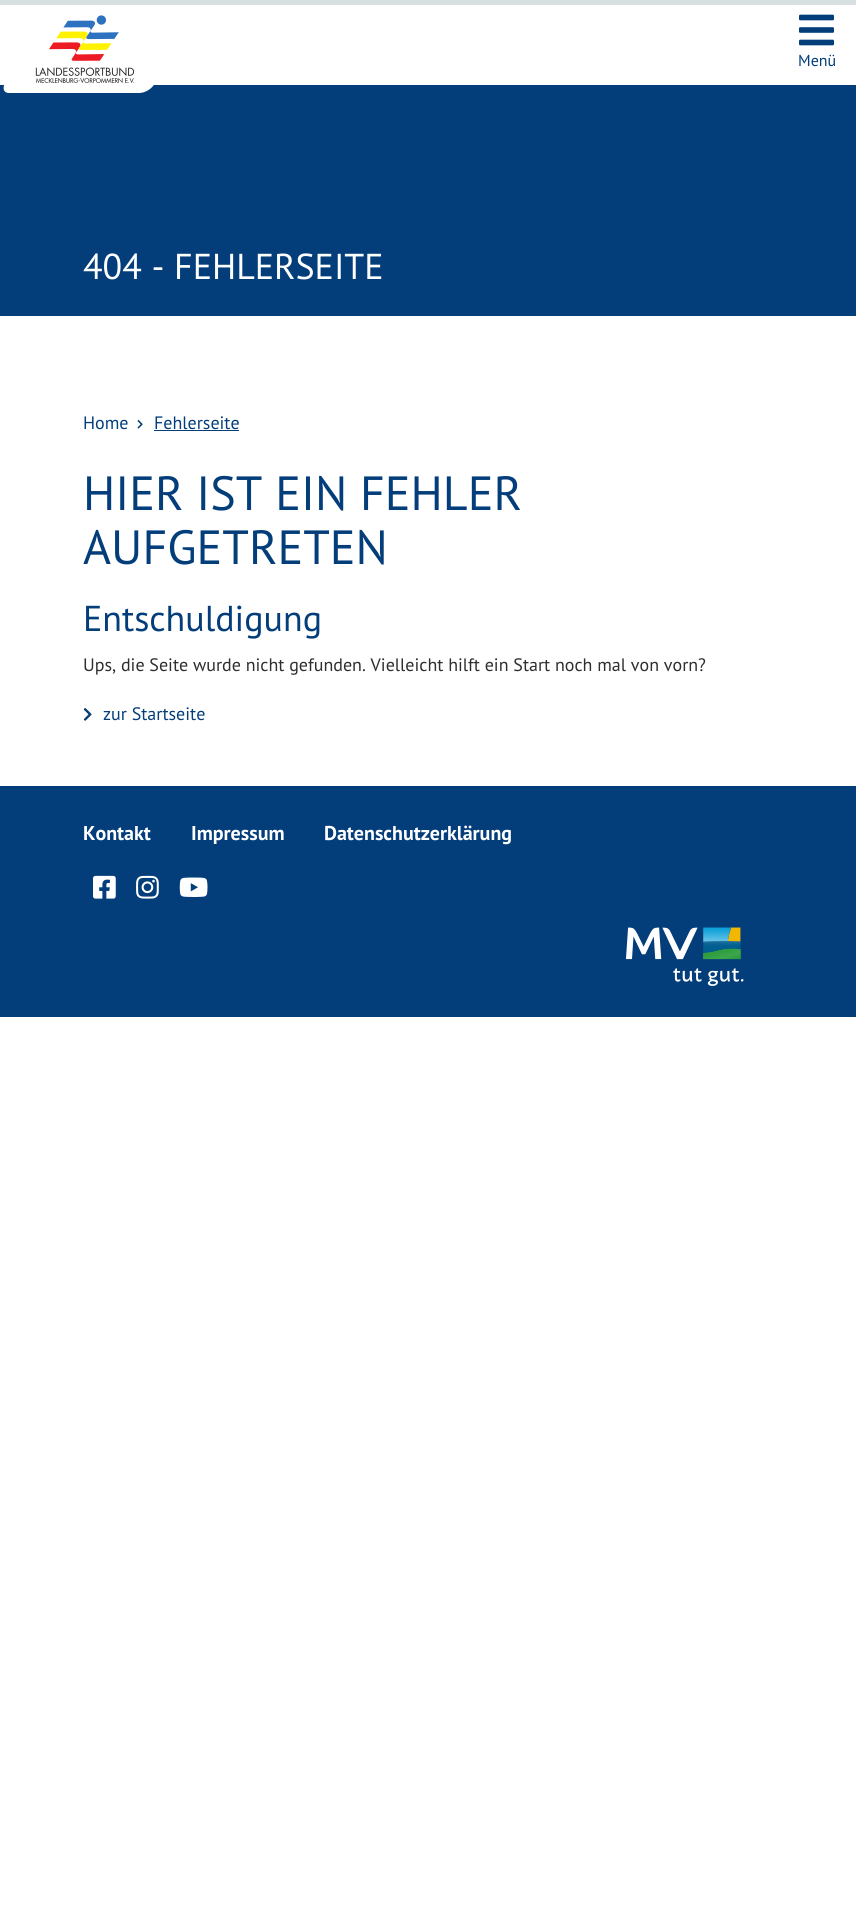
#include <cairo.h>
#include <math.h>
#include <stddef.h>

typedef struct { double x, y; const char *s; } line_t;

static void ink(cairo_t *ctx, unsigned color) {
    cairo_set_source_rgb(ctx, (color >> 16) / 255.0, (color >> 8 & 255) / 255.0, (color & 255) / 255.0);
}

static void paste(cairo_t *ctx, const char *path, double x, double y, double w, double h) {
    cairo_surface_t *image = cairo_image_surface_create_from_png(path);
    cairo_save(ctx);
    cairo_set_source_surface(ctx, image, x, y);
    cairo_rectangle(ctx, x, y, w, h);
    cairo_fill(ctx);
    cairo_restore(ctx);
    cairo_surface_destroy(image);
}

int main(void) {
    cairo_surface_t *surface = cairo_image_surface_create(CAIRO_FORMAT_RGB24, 856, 1908);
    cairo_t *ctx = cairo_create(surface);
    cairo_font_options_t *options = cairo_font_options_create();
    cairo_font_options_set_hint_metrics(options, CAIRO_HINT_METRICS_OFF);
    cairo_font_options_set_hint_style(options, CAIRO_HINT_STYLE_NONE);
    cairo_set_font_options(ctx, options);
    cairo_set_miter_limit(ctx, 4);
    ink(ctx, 0xFFFFFF);
    cairo_paint(ctx);
    ink(ctx, 0xD8DFE1);
    cairo_rectangle(ctx, 0, 0, 856, 5);
    cairo_fill(ctx);
    ink(ctx, 0x033E7A);
    cairo_rectangle(ctx, 0, 85, 856, 231);
    cairo_fill(ctx);
    ink(ctx, 0xFFFFFF);
    cairo_new_path(ctx);
    cairo_move_to(ctx, 61, 5);
    cairo_line_to(ctx, 191, 5);
    cairo_curve_to(ctx, 196, 5, 198, 9, 195, 15);
    cairo_line_to(ctx, 155, 83);
    cairo_curve_to(ctx, 152, 89, 145, 93, 139, 93);
    cairo_line_to(ctx, 9, 93);
    cairo_curve_to(ctx, 4, 93, 2, 89, 5, 83);
    cairo_line_to(ctx, 45, 15);
    cairo_curve_to(ctx, 48, 9, 55, 5, 61, 5);
    cairo_close_path(ctx);
    cairo_fill(ctx);
    paste(ctx, "media/1.png", 35, 15, 100, 68);
    paste(ctx, "media/2.png", 799, 14, 35, 32);
    cairo_select_font_face(ctx, "PT Sans", CAIRO_FONT_SLANT_NORMAL, CAIRO_FONT_WEIGHT_NORMAL);
    cairo_set_font_size(ctx, 16);
    ink(ctx, 0x033E7A);
    cairo_move_to(ctx, 798, 66);
    cairo_show_text(ctx, "Menü");
    cairo_set_font_size(ctx, 36);
    ink(ctx, 0xFFFFFF);
    cairo_move_to(ctx, 83, 279);
    cairo_show_text(ctx, "404 - FEHLERSEITE");
    cairo_set_font_size(ctx, 18);
    ink(ctx, 0x033E7A);
    cairo_move_to(ctx, 83, 429);
    cairo_show_text(ctx, "Home");
    paste(ctx, "media/3.png", 137, 420, 6, 9);
    cairo_move_to(ctx, 154, 429);
    cairo_show_text(ctx, "Fehlerseite");
    cairo_rectangle(ctx, 154, 430, 85, 1);
    cairo_fill(ctx);
    cairo_set_font_size(ctx, 48);
    cairo_move_to(ctx, 83, 510);
    cairo_show_text(ctx, "HIER IST EIN FEHLER");
    cairo_move_to(ctx, 83, 564);
    cairo_show_text(ctx, "AUFGETRETEN");
    cairo_set_font_size(ctx, 36);
    cairo_move_to(ctx, 83, 631);
    cairo_show_text(ctx, "Entschuldigung");
    cairo_set_font_size(ctx, 18);
    ink(ctx, 0x2E2E2E);
    cairo_move_to(ctx, 83, 671);
    cairo_show_text(ctx, "Ups, die Seite wurde nicht gefunden. Vielleicht hilft ein Start noch mal von vorn?");
    paste(ctx, "media/4.png", 83, 708, 9, 13);
    ink(ctx, 0x033E7A);
    cairo_move_to(ctx, 103, 720);
    cairo_show_text(ctx, "zur Startseite");
    cairo_rectangle(ctx, 0, 786, 856, 231);
    cairo_fill(ctx);
    cairo_select_font_face(ctx, "PT Sans", CAIRO_FONT_SLANT_NORMAL, CAIRO_FONT_WEIGHT_BOLD);
    cairo_set_font_size(ctx, 20);
    ink(ctx, 0xFFFFFF);
    {
        static const line_t items[] = {
            {83, 840, "Kontakt"},
            {191, 840, "Impressum"},
            {324, 840, "Datenschutzerklärung"},
        };
        for (size_t i = 0; i < sizeof items / sizeof *items; i++) {
            cairo_move_to(ctx, items[i].x, items[i].y);
            cairo_show_text(ctx, items[i].s);
        }
    }
    paste(ctx, "media/5.png", 93, 875, 23, 24);
    paste(ctx, "media/6.png", 136, 875, 23, 24);
    paste(ctx, "media/7.png", 179, 877, 29, 20);
    paste(ctx, "media/8.png", 626, 927, 118, 59);
    cairo_surface_write_to_png(surface, "image.png");
    cairo_font_options_destroy(options);
    cairo_destroy(ctx);
    cairo_surface_destroy(surface);
    return 0;
}
